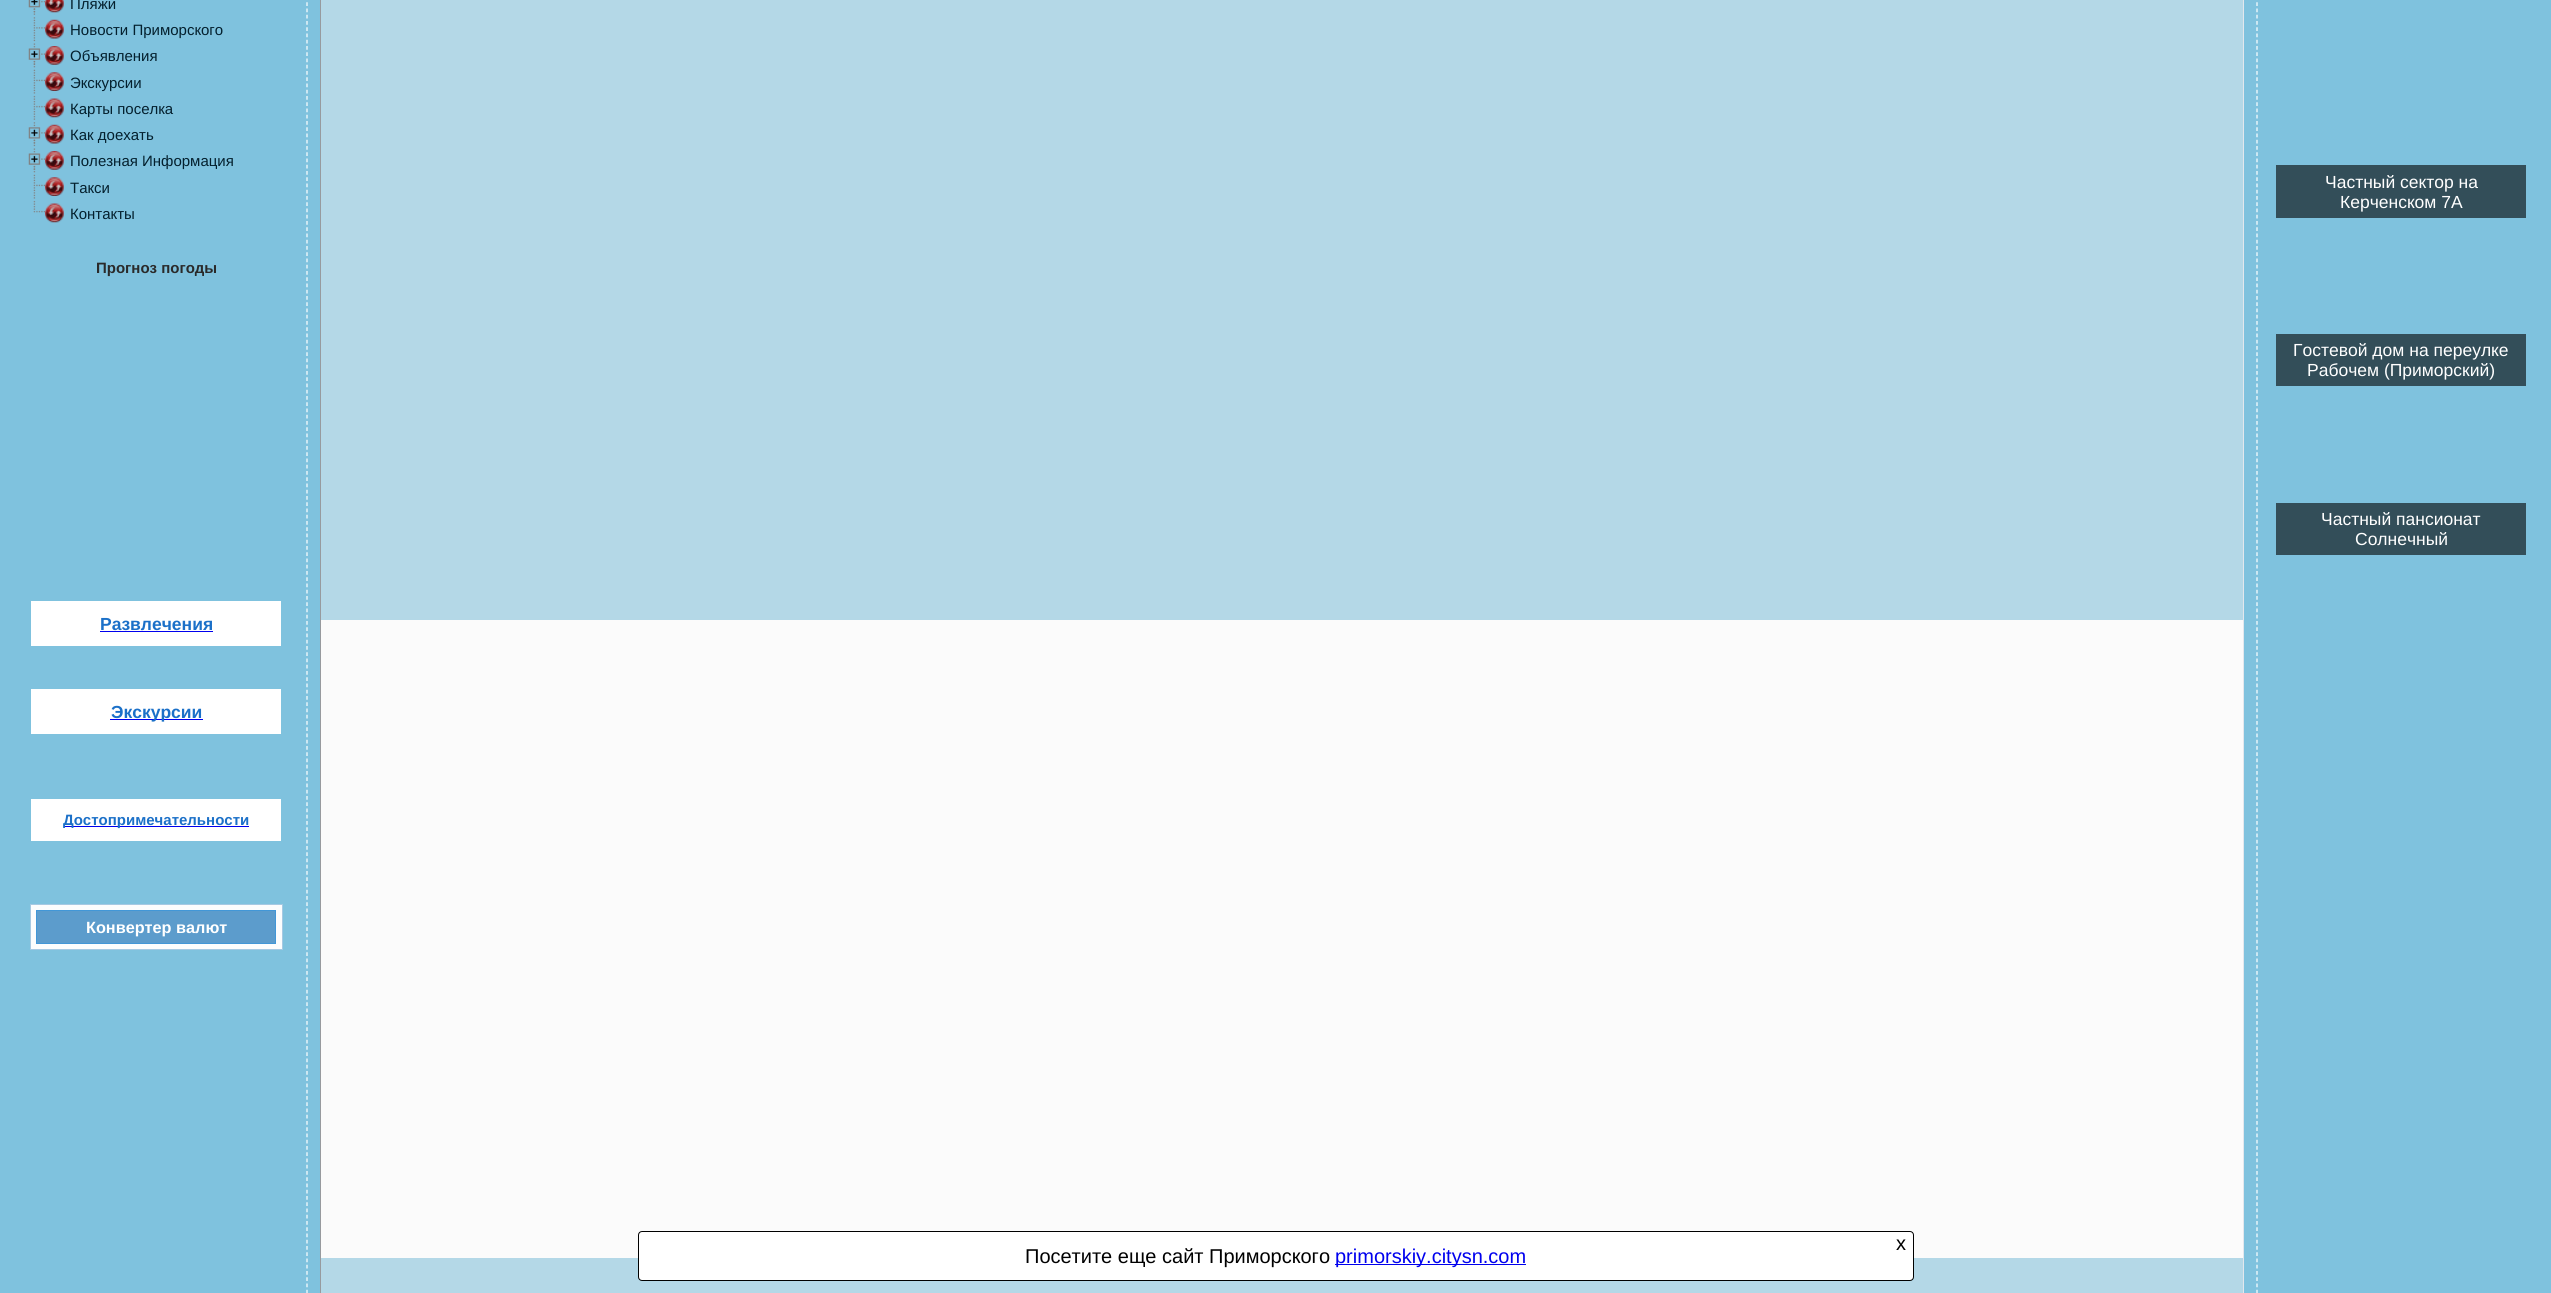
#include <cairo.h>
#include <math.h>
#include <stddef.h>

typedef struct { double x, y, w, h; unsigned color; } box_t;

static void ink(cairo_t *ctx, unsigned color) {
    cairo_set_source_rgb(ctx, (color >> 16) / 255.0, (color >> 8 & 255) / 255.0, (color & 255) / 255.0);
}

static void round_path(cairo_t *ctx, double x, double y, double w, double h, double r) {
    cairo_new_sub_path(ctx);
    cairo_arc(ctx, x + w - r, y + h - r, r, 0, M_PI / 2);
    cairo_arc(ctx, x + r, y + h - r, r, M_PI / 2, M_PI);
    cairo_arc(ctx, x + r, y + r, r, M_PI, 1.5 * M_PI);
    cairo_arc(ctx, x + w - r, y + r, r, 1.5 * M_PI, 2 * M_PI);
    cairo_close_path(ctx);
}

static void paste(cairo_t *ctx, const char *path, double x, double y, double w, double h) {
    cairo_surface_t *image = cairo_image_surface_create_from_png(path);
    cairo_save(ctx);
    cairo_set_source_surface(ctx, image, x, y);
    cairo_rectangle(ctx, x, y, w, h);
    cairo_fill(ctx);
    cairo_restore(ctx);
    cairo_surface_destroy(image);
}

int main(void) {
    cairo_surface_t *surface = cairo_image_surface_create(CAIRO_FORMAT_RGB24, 2551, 1293);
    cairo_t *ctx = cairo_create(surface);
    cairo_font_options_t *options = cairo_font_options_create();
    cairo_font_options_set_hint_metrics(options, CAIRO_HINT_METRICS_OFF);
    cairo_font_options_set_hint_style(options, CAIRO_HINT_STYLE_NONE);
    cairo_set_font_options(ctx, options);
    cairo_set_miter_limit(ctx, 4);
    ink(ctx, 0x7FC2DE);
    cairo_paint(ctx);
    cairo_new_path(ctx);
    cairo_move_to(ctx, 307, -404);
    cairo_line_to(ctx, 307, 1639);
    ink(ctx, 0xFFFFFF);
    cairo_set_line_width(ctx, 1.2);
    cairo_set_dash(ctx, (double[]){3.75, 2.5}, 2, 0);
    cairo_stroke(ctx);
    paste(ctx, "media/1.png", 33, 8, 3, 7);
    paste(ctx, "media/2.png", 28, 0, 17, 13);
    paste(ctx, "media/3.png", 45, 0, 19, 13);
    cairo_select_font_face(ctx, "Liberation Sans", CAIRO_FONT_SLANT_NORMAL, CAIRO_FONT_WEIGHT_NORMAL);
    cairo_set_font_size(ctx, 15);
    ink(ctx, 0x04202E);
    cairo_move_to(ctx, 70, 9);
    cairo_show_text(ctx, "Пляжи");
    paste(ctx, "media/4.png", 33, 17, 12, 25);
    paste(ctx, "media/5.png", 45, 19, 19, 20);
    cairo_move_to(ctx, 70, 35);
    cairo_show_text(ctx, "Новости Приморского");
    paste(ctx, "media/6.png", 33, 43, 3, 25);
    paste(ctx, "media/7.png", 28, 48, 17, 17);
    paste(ctx, "media/8.png", 45, 46, 19, 19);
    cairo_move_to(ctx, 70, 61);
    cairo_show_text(ctx, "Объявления");
    paste(ctx, "media/9.png", 33, 69, 12, 25);
    paste(ctx, "media/10.png", 45, 72, 19, 19);
    cairo_move_to(ctx, 70, 88);
    cairo_show_text(ctx, "Экскурсии");
    paste(ctx, "media/11.png", 33, 95, 12, 25);
    paste(ctx, "media/12.png", 45, 98, 19, 20);
    cairo_move_to(ctx, 70, 114);
    cairo_show_text(ctx, "Карты поселка");
    paste(ctx, "media/13.png", 33, 122, 3, 25);
    paste(ctx, "media/14.png", 28, 127, 17, 17);
    paste(ctx, "media/15.png", 45, 124, 19, 20);
    cairo_move_to(ctx, 70, 140);
    cairo_show_text(ctx, "Как доехать");
    paste(ctx, "media/6.png", 33, 148, 3, 25);
    paste(ctx, "media/7.png", 28, 153, 17, 17);
    paste(ctx, "media/8.png", 45, 151, 19, 19);
    cairo_move_to(ctx, 70, 166);
    cairo_show_text(ctx, "Полезная Информация");
    paste(ctx, "media/9.png", 33, 174, 12, 25);
    paste(ctx, "media/10.png", 45, 177, 19, 19);
    cairo_move_to(ctx, 70, 193);
    cairo_show_text(ctx, "Такси");
    paste(ctx, "media/16.png", 33, 200, 12, 13);
    paste(ctx, "media/12.png", 45, 203, 19, 20);
    cairo_move_to(ctx, 70, 219);
    cairo_show_text(ctx, "Контакты");
    cairo_select_font_face(ctx, "Liberation Sans", CAIRO_FONT_SLANT_NORMAL, CAIRO_FONT_WEIGHT_BOLD);
    ink(ctx, 0x2A2A2A);
    cairo_move_to(ctx, 96, 273);
    cairo_show_text(ctx, "Прогноз погоды");
    ink(ctx, 0xFFFFFF);
    cairo_rectangle(ctx, 31, 601, 250, 45);
    cairo_fill(ctx);
    cairo_set_font_size(ctx, 17.5);
    ink(ctx, 0x1B70C8);
    cairo_move_to(ctx, 100, 630);
    cairo_show_text(ctx, "Развлечения");
    {
        static const box_t items[] = {
            {100, 631, 113, 1, 0x0000EE},
            {31, 689, 250, 45, 0xFFFFFF},
            {110, 719, 93, 1, 0x0000EE},
        };
        for (size_t i = 0; i < sizeof items / sizeof *items; i++) {
            ink(ctx, items[i].color);
            cairo_rectangle(ctx, items[i].x, items[i].y, items[i].w, items[i].h);
            cairo_fill(ctx);
        }
    }
    ink(ctx, 0x1B70C8);
    cairo_move_to(ctx, 111, 718);
    cairo_show_text(ctx, "Экскурсии");
    ink(ctx, 0xFFFFFF);
    cairo_rectangle(ctx, 31, 799, 250, 42);
    cairo_fill(ctx);
    ink(ctx, 0x0000EE);
    cairo_rectangle(ctx, 64, 826, 185, 1);
    cairo_fill(ctx);
    cairo_set_font_size(ctx, 15);
    ink(ctx, 0x1B70C8);
    cairo_move_to(ctx, 63, 825);
    cairo_show_text(ctx, "Достопримечательности");
    ink(ctx, 0xFCFDFD);
    cairo_rectangle(ctx, 30.5, 904.5, 252, 45);
    cairo_fill_preserve(ctx);
    ink(ctx, 0xA6C9E2);
    cairo_set_line_width(ctx, 1);
    cairo_set_dash(ctx, NULL, 0, 0);
    cairo_stroke(ctx);
    ink(ctx, 0x5C9CCC);
    cairo_rectangle(ctx, 36.5, 910.5, 239, 33);
    cairo_fill_preserve(ctx);
    ink(ctx, 0x4297D7);
    cairo_stroke(ctx);
    cairo_set_font_size(ctx, 16.25);
    ink(ctx, 0xFFFFFF);
    cairo_move_to(ctx, 86, 933);
    cairo_show_text(ctx, "Конвертер валют");
    {
        static const box_t items[] = {
            {321, 0, 1922, 1293, 0xB4D8E7},
            {2243, 0, 1, 1293, 0xE3E7ED},
            {320, 0, 1, 1293, 0x979A9E},
            {321, 620, 1922, 638, 0xFBFBFB},
        };
        for (size_t i = 0; i < sizeof items / sizeof *items; i++) {
            ink(ctx, items[i].color);
            cairo_rectangle(ctx, items[i].x, items[i].y, items[i].w, items[i].h);
            cairo_fill(ctx);
        }
    }
    cairo_new_path(ctx);
    cairo_move_to(ctx, 2257, -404);
    cairo_line_to(ctx, 2257, 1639);
    ink(ctx, 0xFFFFFF);
    cairo_set_line_width(ctx, 1.2);
    cairo_set_dash(ctx, (double[]){3.75, 2.5}, 2, 0);
    cairo_stroke(ctx);
    ink(ctx, 0x334E59);
    cairo_rectangle(ctx, 2276, 165, 250, 53);
    cairo_fill(ctx);
    cairo_select_font_face(ctx, "Liberation Sans", CAIRO_FONT_SLANT_NORMAL, CAIRO_FONT_WEIGHT_NORMAL);
    cairo_set_font_size(ctx, 17.5);
    ink(ctx, 0xFFFFFF);
    cairo_move_to(ctx, 2325, 188);
    cairo_show_text(ctx, "Частный сектор на");
    cairo_move_to(ctx, 2340, 208);
    cairo_show_text(ctx, "Керченском 7А");
    ink(ctx, 0x334E59);
    cairo_rectangle(ctx, 2276, 334, 250, 52);
    cairo_fill(ctx);
    ink(ctx, 0xFFFFFF);
    cairo_move_to(ctx, 2293, 356);
    cairo_show_text(ctx, "Гостевой дом на переулке");
    cairo_move_to(ctx, 2307, 376);
    cairo_show_text(ctx, "Рабочем (Приморский)");
    ink(ctx, 0x334E59);
    cairo_rectangle(ctx, 2276, 503, 250, 52);
    cairo_fill(ctx);
    ink(ctx, 0xFFFFFF);
    cairo_move_to(ctx, 2321, 525);
    cairo_show_text(ctx, "Частный пансионат");
    cairo_move_to(ctx, 2355, 545);
    cairo_show_text(ctx, "Солнечный");
    round_path(ctx, 638.5, 1231.5, 1275, 49, 3.5);
    cairo_fill_preserve(ctx);
    ink(ctx, 0x000000);
    cairo_set_line_width(ctx, 1);
    cairo_set_dash(ctx, NULL, 0, 0);
    cairo_stroke(ctx);
    cairo_set_font_size(ctx, 20);
    cairo_move_to(ctx, 1896, 1250);
    cairo_show_text(ctx, "x");
    cairo_move_to(ctx, 1025, 1263);
    cairo_show_text(ctx, "Посетите еще сайт Приморского");
    ink(ctx, 0x0000EE);
    cairo_rectangle(ctx, 1335, 1264, 191, 1);
    cairo_fill(ctx);
    cairo_move_to(ctx, 1335, 1263);
    cairo_show_text(ctx, "primorskiy.citysn.com");
    cairo_surface_write_to_png(surface, "image.png");
    cairo_font_options_destroy(options);
    cairo_destroy(ctx);
    cairo_surface_destroy(surface);
    return 0;
}
